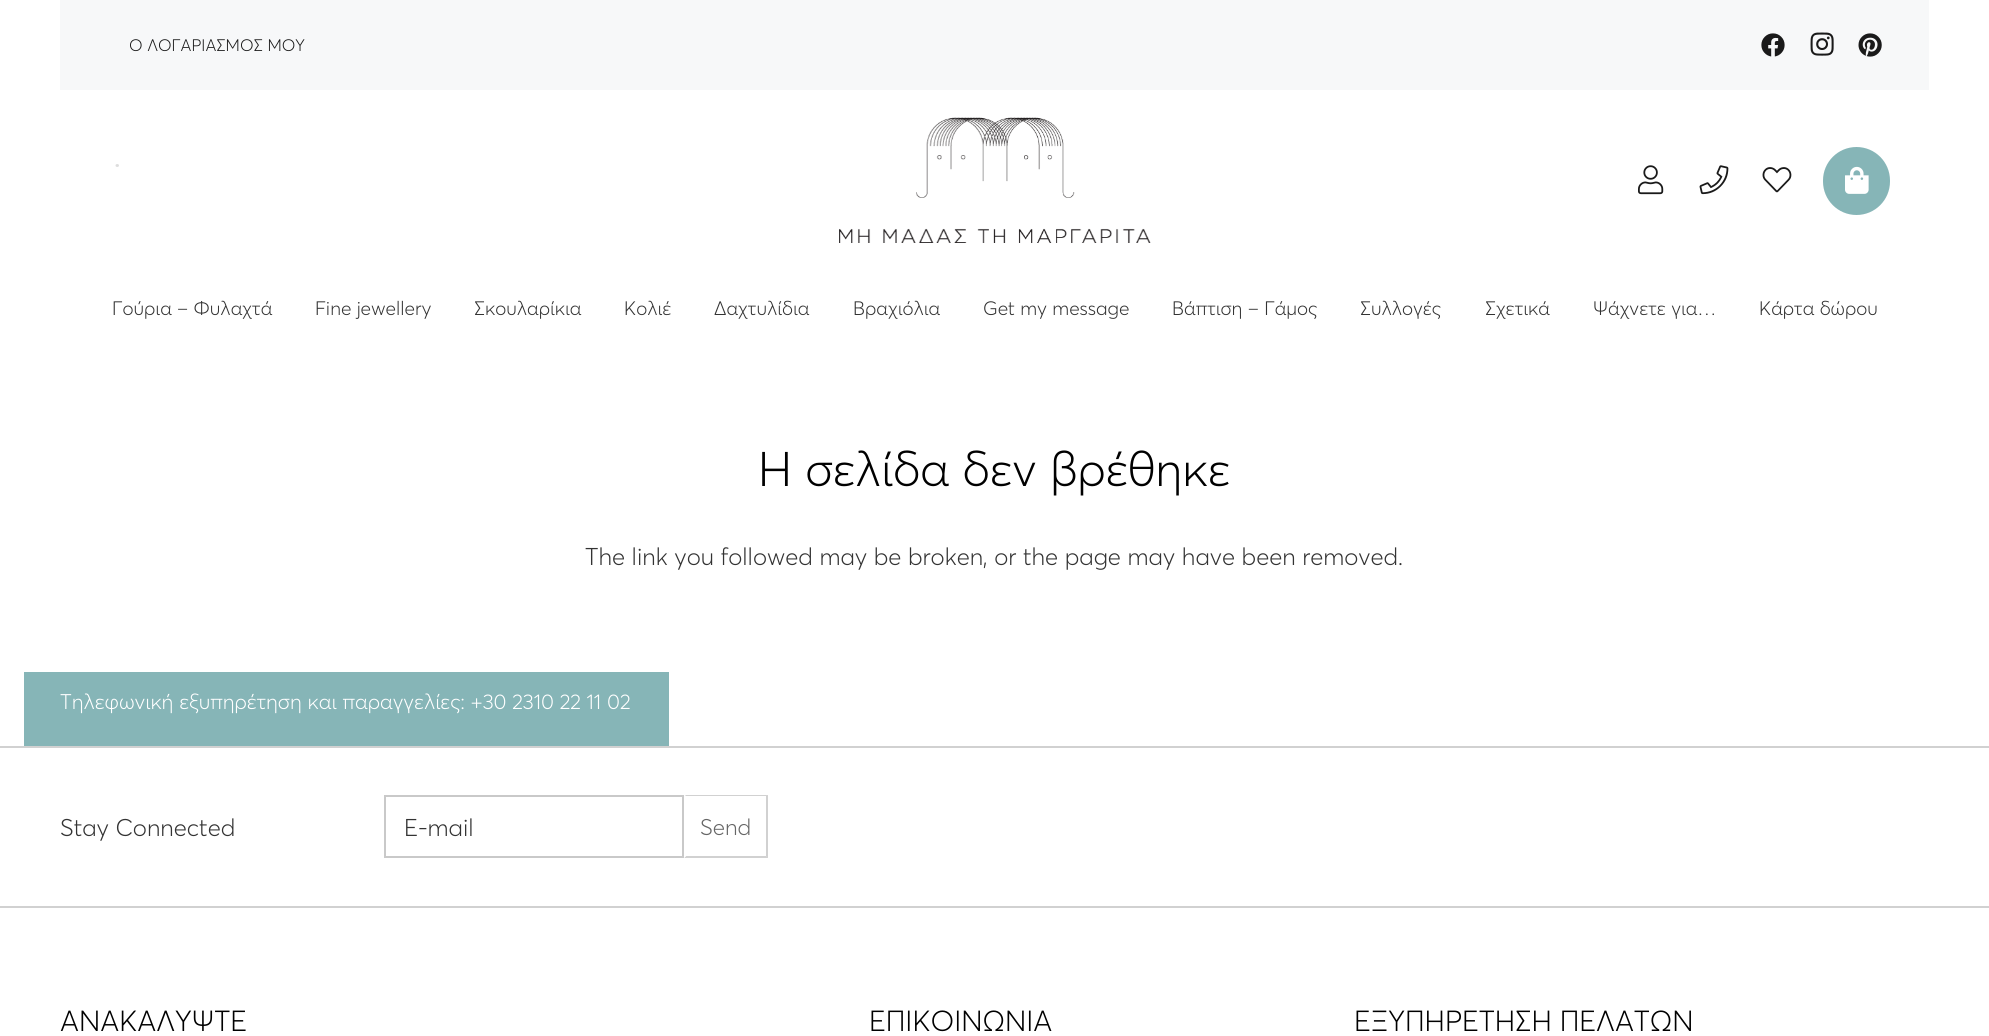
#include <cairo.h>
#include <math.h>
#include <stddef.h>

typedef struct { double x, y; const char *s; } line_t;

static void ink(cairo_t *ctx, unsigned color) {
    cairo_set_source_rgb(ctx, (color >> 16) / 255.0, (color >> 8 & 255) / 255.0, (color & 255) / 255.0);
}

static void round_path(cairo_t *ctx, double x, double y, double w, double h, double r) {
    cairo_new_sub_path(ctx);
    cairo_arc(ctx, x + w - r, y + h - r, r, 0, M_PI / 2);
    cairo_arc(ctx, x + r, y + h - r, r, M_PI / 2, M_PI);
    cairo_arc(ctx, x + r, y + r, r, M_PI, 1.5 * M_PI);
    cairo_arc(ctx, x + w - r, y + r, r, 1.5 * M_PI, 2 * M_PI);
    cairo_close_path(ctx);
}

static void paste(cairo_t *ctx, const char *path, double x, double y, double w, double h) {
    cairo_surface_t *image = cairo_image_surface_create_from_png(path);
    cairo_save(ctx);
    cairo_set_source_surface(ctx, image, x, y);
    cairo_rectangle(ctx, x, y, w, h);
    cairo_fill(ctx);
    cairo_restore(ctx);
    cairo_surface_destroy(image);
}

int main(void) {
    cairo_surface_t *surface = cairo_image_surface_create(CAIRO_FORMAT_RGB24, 1989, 1036);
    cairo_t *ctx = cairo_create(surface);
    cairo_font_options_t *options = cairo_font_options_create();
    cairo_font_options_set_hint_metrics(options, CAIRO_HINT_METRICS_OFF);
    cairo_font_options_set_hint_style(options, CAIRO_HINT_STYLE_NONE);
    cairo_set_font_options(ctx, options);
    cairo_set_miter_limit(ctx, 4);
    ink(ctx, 0xFFFFFF);
    cairo_paint(ctx);
    ink(ctx, 0xF7F8F9);
    cairo_rectangle(ctx, 60, 0, 1869, 90);
    cairo_fill(ctx);
    cairo_select_font_face(ctx, "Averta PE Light", CAIRO_FONT_SLANT_NORMAL, CAIRO_FONT_WEIGHT_NORMAL);
    cairo_set_font_size(ctx, 16.5);
    ink(ctx, 0x1A1A1A);
    cairo_move_to(ctx, 129, 51);
    cairo_show_text(ctx, "Ο ΛΟΓΑΡΙΑΣΜΟΣ ΜΟΥ");
    paste(ctx, "media/1.png", 1761, 33, 24, 24);
    paste(ctx, "media/2.png", 1810, 32, 24, 24);
    paste(ctx, "media/3.png", 1858, 33, 24, 24);
    cairo_new_path(ctx);
    cairo_move_to(ctx, 117, 165.5);
    cairo_line_to(ctx, 117.5, 165.5);
    ink(ctx, 0xDDDDDD);
    cairo_set_line_width(ctx, 2.9);
    cairo_set_line_cap(ctx, CAIRO_LINE_CAP_ROUND);
    cairo_stroke(ctx);
    paste(ctx, "media/4.png", 839, 117, 312, 126);
    paste(ctx, "media/5.png", 1638, 165, 26, 30);
    paste(ctx, "media/6.png", 1699, 165, 30, 30);
    paste(ctx, "media/7.png", 1762, 167, 30, 26);
    ink(ctx, 0x86B5B7);
    round_path(ctx, 1823, 147, 67, 68, 33.5);
    cairo_fill(ctx);
    paste(ctx, "media/8.png", 1845, 166, 24, 28);
    cairo_set_font_size(ctx, 19.25);
    ink(ctx, 0x333333);
    {
        static const line_t items[] = {
            {112, 315, "Γούρια – Φυλαχτά"},
            {315, 315, "Fine jewellery"},
            {474, 315, "Σκουλαρίκια"},
            {624, 315, "Κολιέ"},
            {714, 315, "Δαχτυλίδια"},
            {853, 315, "Βραχιόλια"},
            {983, 315, "Get my message"},
            {1172, 315, "Βάπτιση – Γάμος"},
            {1360, 315, "Συλλογές"},
            {1485, 315, "Σχετικά"},
            {1593, 315, "Ψάχνετε για…"},
            {1759, 315, "Κάρτα δώρου"},
        };
        for (size_t i = 0; i < sizeof items / sizeof *items; i++) {
            cairo_move_to(ctx, items[i].x, items[i].y);
            cairo_show_text(ctx, items[i].s);
        }
    }
    cairo_set_font_size(ctx, 48);
    ink(ctx, 0x000000);
    cairo_move_to(ctx, 758, 486);
    cairo_show_text(ctx, "Η σελίδα δεν βρέθηκε");
    cairo_set_font_size(ctx, 24);
    ink(ctx, 0x333333);
    cairo_move_to(ctx, 585, 565);
    cairo_show_text(ctx, "The link you followed may be broken, or the page may have been removed.");
    ink(ctx, 0x86B5B7);
    cairo_rectangle(ctx, 24, 672, 645, 74);
    cairo_fill(ctx);
    cairo_set_font_size(ctx, 21);
    ink(ctx, 0xFFFFFF);
    cairo_move_to(ctx, 60, 709);
    cairo_show_text(ctx, "Τηλεφωνική εξυπηρέτηση και παραγγελίες: +30 2310 22 11 02");
    ink(ctx, 0xD1D1D1);
    cairo_rectangle(ctx, 0, 746, 1989, 2);
    cairo_fill(ctx);
    cairo_rectangle(ctx, 0, 906, 1989, 2);
    cairo_fill(ctx);
    cairo_set_font_size(ctx, 24);
    ink(ctx, 0x333333);
    cairo_move_to(ctx, 60, 836);
    cairo_show_text(ctx, "Stay Connected");
    cairo_rectangle(ctx, 385, 796, 298, 61);
    ink(ctx, 0xC9C9C9);
    cairo_set_line_width(ctx, 2);
    cairo_set_line_cap(ctx, CAIRO_LINE_CAP_BUTT);
    cairo_stroke(ctx);
    ink(ctx, 0x333333);
    cairo_move_to(ctx, 404, 836);
    cairo_show_text(ctx, "E-mail");
    ink(ctx, 0xD1D1D1);
    cairo_new_path(ctx);
    cairo_move_to(ctx, 684, 795);
    cairo_line_to(ctx, 768, 795);
    cairo_line_to(ctx, 766, 796);
    cairo_line_to(ctx, 686, 796);
    cairo_close_path(ctx);
    cairo_fill(ctx);
    cairo_set_source_rgba(ctx, 0.4, 0.4, 0.4, 0.3);
    cairo_new_path(ctx);
    cairo_move_to(ctx, 768, 795);
    cairo_line_to(ctx, 768, 858);
    cairo_line_to(ctx, 766, 856);
    cairo_line_to(ctx, 766, 796);
    cairo_close_path(ctx);
    cairo_fill(ctx);
    cairo_new_path(ctx);
    cairo_move_to(ctx, 768, 858);
    cairo_line_to(ctx, 684, 858);
    cairo_line_to(ctx, 686, 856);
    cairo_line_to(ctx, 766, 856);
    cairo_close_path(ctx);
    cairo_fill(ctx);
    ink(ctx, 0xFFFFFF);
    cairo_new_path(ctx);
    cairo_move_to(ctx, 684, 858);
    cairo_line_to(ctx, 684, 795);
    cairo_line_to(ctx, 686, 796);
    cairo_line_to(ctx, 686, 856);
    cairo_close_path(ctx);
    cairo_fill(ctx);
    cairo_set_font_size(ctx, 22.5);
    ink(ctx, 0x666666);
    cairo_move_to(ctx, 700, 835);
    cairo_show_text(ctx, "Send");
    cairo_set_font_size(ctx, 28.75);
    ink(ctx, 0x000000);
    {
        static const line_t items[] = {
            {60, 1031, "ΑΝΑΚΑΛΥΨΤΕ"},
            {869, 1031, "ΕΠΙΚΟΙΝΩΝΙΑ"},
            {1354, 1031, "ΕΞΥΠΗΡΕΤΗΣΗ ΠΕΛΑΤΩΝ"},
        };
        for (size_t i = 0; i < sizeof items / sizeof *items; i++) {
            cairo_move_to(ctx, items[i].x, items[i].y);
            cairo_show_text(ctx, items[i].s);
        }
    }
    cairo_surface_write_to_png(surface, "image.png");
    cairo_font_options_destroy(options);
    cairo_destroy(ctx);
    cairo_surface_destroy(surface);
    return 0;
}
